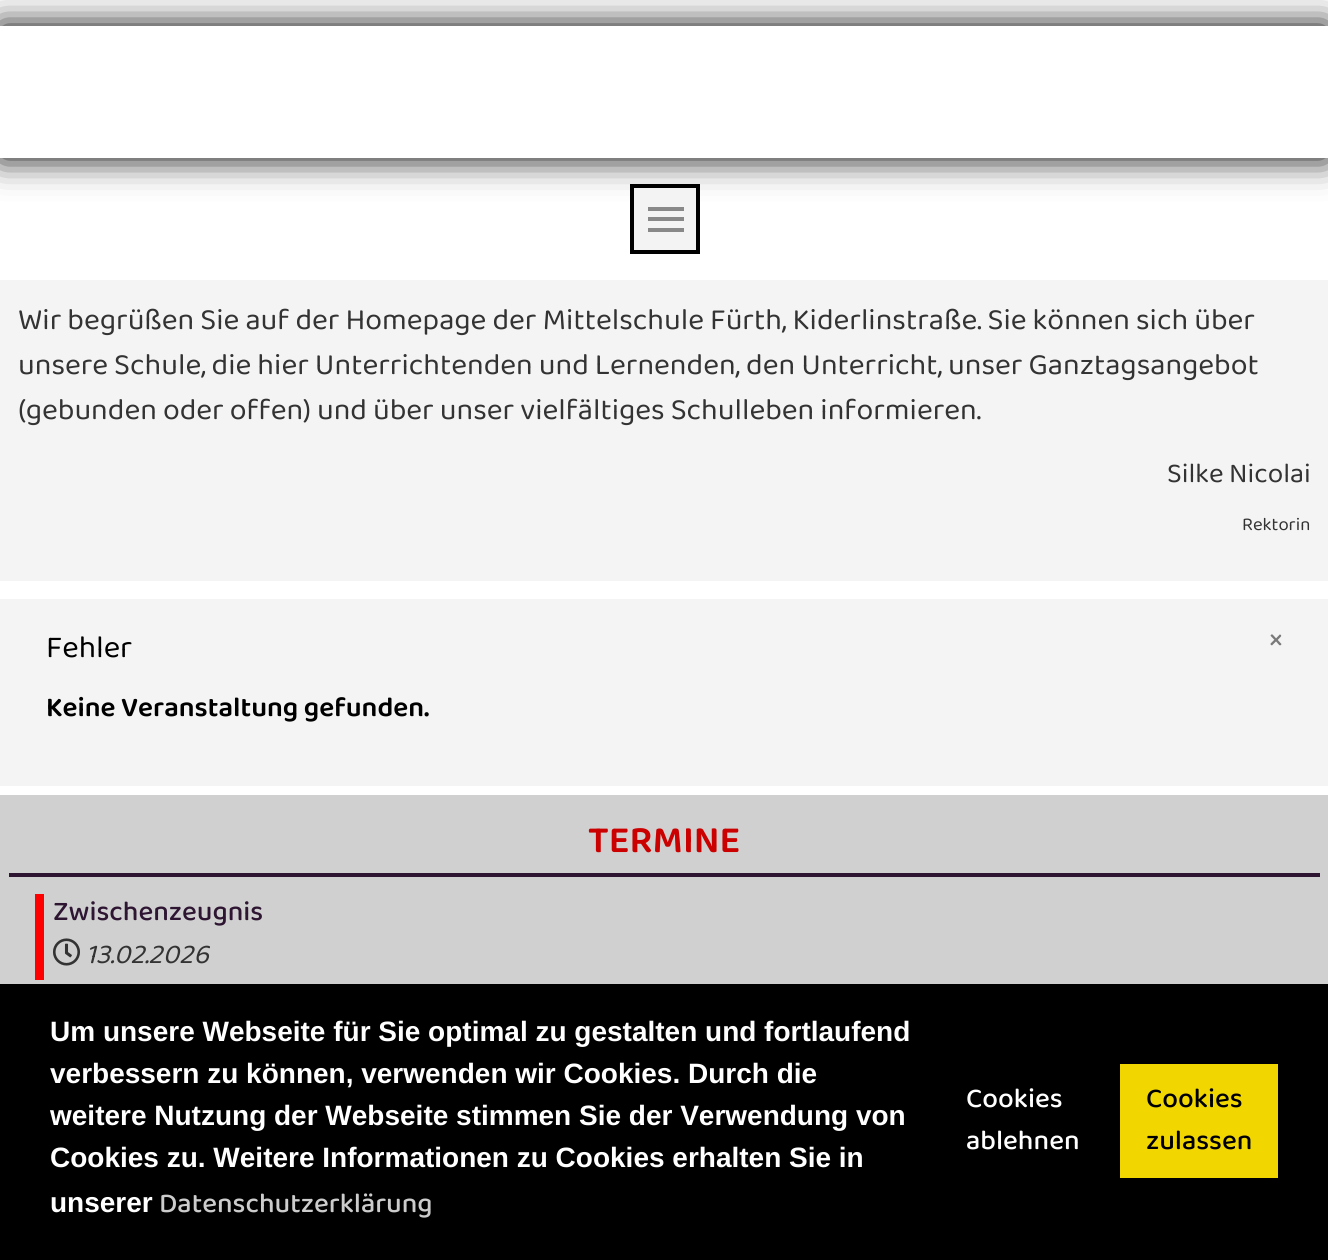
#include <cairo.h>
#include <math.h>
#include <stddef.h>

typedef struct { double x, y; const char *s; } line_t;
typedef struct { double x, y, w, h; unsigned color; } box_t;

static void ink(cairo_t *ctx, unsigned color) {
    cairo_set_source_rgb(ctx, (color >> 16) / 255.0, (color >> 8 & 255) / 255.0, (color & 255) / 255.0);
}

static void round_path(cairo_t *ctx, double x, double y, double w, double h, double r) {
    cairo_new_sub_path(ctx);
    cairo_arc(ctx, x + w - r, y + h - r, r, 0, M_PI / 2);
    cairo_arc(ctx, x + r, y + h - r, r, M_PI / 2, M_PI);
    cairo_arc(ctx, x + r, y + r, r, M_PI, 1.5 * M_PI);
    cairo_arc(ctx, x + w - r, y + r, r, 1.5 * M_PI, 2 * M_PI);
    cairo_close_path(ctx);
}

static void blur_box(cairo_t *ctx, double x, double y, double w, double h, double r, double blur, double alpha) {
    cairo_push_group_with_content(ctx, CAIRO_CONTENT_ALPHA);
    cairo_set_operator(ctx, CAIRO_OPERATOR_SOURCE);
    for (int i = 15; i >= -15 && fmin(w, h) + blur * i / 3 > 0; i -= 2) {
        double e = blur * i / 6;
        cairo_set_source_rgba(ctx, 0, 0, 0, alpha * erfc((i - 1) / 8.5) / 2);
        round_path(ctx, x - e, y - e, w + 2 * e, h + 2 * e, fmax(0, fmin(r + e + blur * .6, fmin(w, h) / 2 + e)));
        cairo_fill(ctx);
    }
    cairo_pattern_t *soft = cairo_pop_group(ctx);
    cairo_mask(ctx, soft);
    cairo_pattern_destroy(soft);
}

static void paste(cairo_t *ctx, const char *path, double x, double y, double w, double h) {
    cairo_surface_t *image = cairo_image_surface_create_from_png(path);
    cairo_save(ctx);
    cairo_set_source_surface(ctx, image, x, y);
    cairo_rectangle(ctx, x, y, w, h);
    cairo_fill(ctx);
    cairo_restore(ctx);
    cairo_surface_destroy(image);
}

int main(void) {
    cairo_surface_t *surface = cairo_image_surface_create(CAIRO_FORMAT_RGB24, 1328, 1260);
    cairo_t *ctx = cairo_create(surface);
    cairo_font_options_t *options = cairo_font_options_create();
    cairo_font_options_set_hint_metrics(options, CAIRO_HINT_METRICS_OFF);
    cairo_font_options_set_hint_style(options, CAIRO_HINT_STYLE_NONE);
    cairo_set_font_options(ctx, options);
    cairo_set_miter_limit(ctx, 4);
    ink(ctx, 0xFFFFFF);
    cairo_paint(ctx);
    cairo_save(ctx);
    cairo_set_fill_rule(ctx, CAIRO_FILL_RULE_EVEN_ODD);
    cairo_new_path(ctx);
    cairo_move_to(ctx, 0, 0);
    cairo_line_to(ctx, 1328, 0);
    cairo_line_to(ctx, 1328, 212);
    cairo_line_to(ctx, 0, 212);
    cairo_close_path(ctx);
    cairo_move_to(ctx, 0, 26);
    cairo_line_to(ctx, 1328, 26);
    cairo_line_to(ctx, 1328, 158);
    cairo_line_to(ctx, 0, 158);
    cairo_close_path(ctx);
    cairo_clip(ctx);
    ink(ctx, 0x000000);
    blur_box(ctx, 0, 26, 1328, 132, 0, 17.5, 1);
    cairo_restore(ctx);
    ink(ctx, 0xF3F3F3);
    cairo_rectangle(ctx, 634, 189, 62, 61);
    cairo_fill(ctx);
    cairo_rectangle(ctx, 632, 186, 66, 66);
    ink(ctx, 0x000000);
    cairo_set_line_width(ctx, 4);
    cairo_stroke(ctx);
    {
        static const box_t items[] = {
            {648, 207, 36, 4, 0x888888},
            {648, 217, 36, 4, 0x888888},
            {648, 228, 36, 4, 0x888888},
            {0, 280, 1328, 301, 0xF4F4F4},
        };
        for (size_t i = 0; i < sizeof items / sizeof *items; i++) {
            ink(ctx, items[i].color);
            cairo_rectangle(ctx, items[i].x, items[i].y, items[i].w, items[i].h);
            cairo_fill(ctx);
        }
    }
    cairo_select_font_face(ctx, "Baloo 2", CAIRO_FONT_SLANT_NORMAL, CAIRO_FONT_WEIGHT_NORMAL);
    cairo_set_font_size(ctx, 30.35);
    ink(ctx, 0x333333);
    {
        static const line_t items[] = {
            {18, 329, "Wir begrüßen Sie auf der Homepage der Mittelschule Fürth, Kiderlinstraße. Sie können sich über"},
            {18, 374, "unsere Schule, die hier Unterrichtenden und Lernenden, den Unterricht, unser Ganztagsangebot"},
            {18, 419, "(gebunden oder offen) und über unser vielfältiges Schulleben informieren."},
        };
        for (size_t i = 0; i < sizeof items / sizeof *items; i++) {
            cairo_move_to(ctx, items[i].x, items[i].y);
            cairo_show_text(ctx, items[i].s);
        }
    }
    cairo_set_font_size(ctx, 28);
    cairo_move_to(ctx, 1167, 482);
    cairo_show_text(ctx, "Silke Nicolai");
    cairo_set_font_size(ctx, 18.5);
    cairo_move_to(ctx, 1242, 530);
    cairo_show_text(ctx, "Rektorin");
    ink(ctx, 0xF4F4F4);
    cairo_rectangle(ctx, 0, 599, 1328, 187);
    cairo_fill(ctx);
    cairo_set_font_size(ctx, 31.5);
    ink(ctx, 0x000000);
    cairo_move_to(ctx, 46, 657);
    cairo_show_text(ctx, "Fehler");
    cairo_select_font_face(ctx, "Baloo 2 Medium", CAIRO_FONT_SLANT_NORMAL, CAIRO_FONT_WEIGHT_NORMAL);
    cairo_set_font_size(ctx, 28);
    ink(ctx, 0x7A7A7A);
    cairo_move_to(ctx, 1269, 648);
    cairo_show_text(ctx, "×");
    cairo_select_font_face(ctx, "Baloo 2 SemiBold", CAIRO_FONT_SLANT_NORMAL, CAIRO_FONT_WEIGHT_NORMAL);
    ink(ctx, 0x000000);
    cairo_move_to(ctx, 46, 716);
    cairo_show_text(ctx, "Keine Veranstaltung gefunden.");
    ink(ctx, 0xD0D0D0);
    cairo_rectangle(ctx, 0, 795, 1328, 189);
    cairo_fill(ctx);
    ink(ctx, 0x2E1532);
    cairo_rectangle(ctx, 9, 873, 1311, 4);
    cairo_fill(ctx);
    cairo_set_font_size(ctx, 38.5);
    ink(ctx, 0xCB0000);
    cairo_move_to(ctx, 588, 852);
    cairo_show_text(ctx, "TERMINE");
    ink(ctx, 0xFF0000);
    cairo_rectangle(ctx, 35, 894, 9, 86);
    cairo_fill(ctx);
    cairo_select_font_face(ctx, "Baloo 2 Medium", CAIRO_FONT_SLANT_NORMAL, CAIRO_FONT_WEIGHT_NORMAL);
    cairo_set_font_size(ctx, 28);
    ink(ctx, 0x2E1532);
    cairo_move_to(ctx, 53, 920);
    cairo_show_text(ctx, "Zwischenzeugnis");
    paste(ctx, "media/1.png", 53, 938, 27, 28);
    cairo_select_font_face(ctx, "Baloo 2", CAIRO_FONT_SLANT_ITALIC, CAIRO_FONT_WEIGHT_NORMAL);
    ink(ctx, 0x333333);
    cairo_move_to(ctx, 86, 963);
    cairo_show_text(ctx, "13.02.2026");
    ink(ctx, 0x000000);
    cairo_rectangle(ctx, 0, 984, 1328, 276);
    cairo_fill(ctx);
    cairo_select_font_face(ctx, "Liberation Sans", CAIRO_FONT_SLANT_NORMAL, CAIRO_FONT_WEIGHT_BOLD);
    ink(ctx, 0xFFFFFF);
    {
        static const line_t items[] = {
            {50, 1041, "Um unsere Webseite für Sie optimal zu gestalten und fortlaufend"},
            {50, 1083, "verbessern zu können, verwenden wir Cookies. Durch die"},
            {50, 1125, "weitere Nutzung der Webseite stimmen Sie der Verwendung von"},
            {50, 1167, "Cookies zu. Weitere Informationen zu Cookies erhalten Sie in"},
            {50, 1212, "unserer"},
        };
        for (size_t i = 0; i < sizeof items / sizeof *items; i++) {
            cairo_move_to(ctx, items[i].x, items[i].y);
            cairo_show_text(ctx, items[i].s);
        }
    }
    cairo_select_font_face(ctx, "Baloo 2 Medium", CAIRO_FONT_SLANT_NORMAL, CAIRO_FONT_WEIGHT_NORMAL);
    ink(ctx, 0xCCCCCC);
    cairo_move_to(ctx, 159, 1212);
    cairo_show_text(ctx, "Datenschutzerklärung");
    ink(ctx, 0xFFFFFF);
    cairo_move_to(ctx, 966, 1107);
    cairo_show_text(ctx, "Cookies");
    cairo_move_to(ctx, 966, 1149);
    cairo_show_text(ctx, "ablehnen");
    ink(ctx, 0xF1D600);
    cairo_rectangle(ctx, 1120, 1064, 158, 114);
    cairo_fill(ctx);
    ink(ctx, 0x000000);
    cairo_move_to(ctx, 1146, 1107);
    cairo_show_text(ctx, "Cookies");
    cairo_move_to(ctx, 1146, 1149);
    cairo_show_text(ctx, "zulassen");
    cairo_surface_write_to_png(surface, "image.png");
    cairo_font_options_destroy(options);
    cairo_destroy(ctx);
    cairo_surface_destroy(surface);
    return 0;
}
